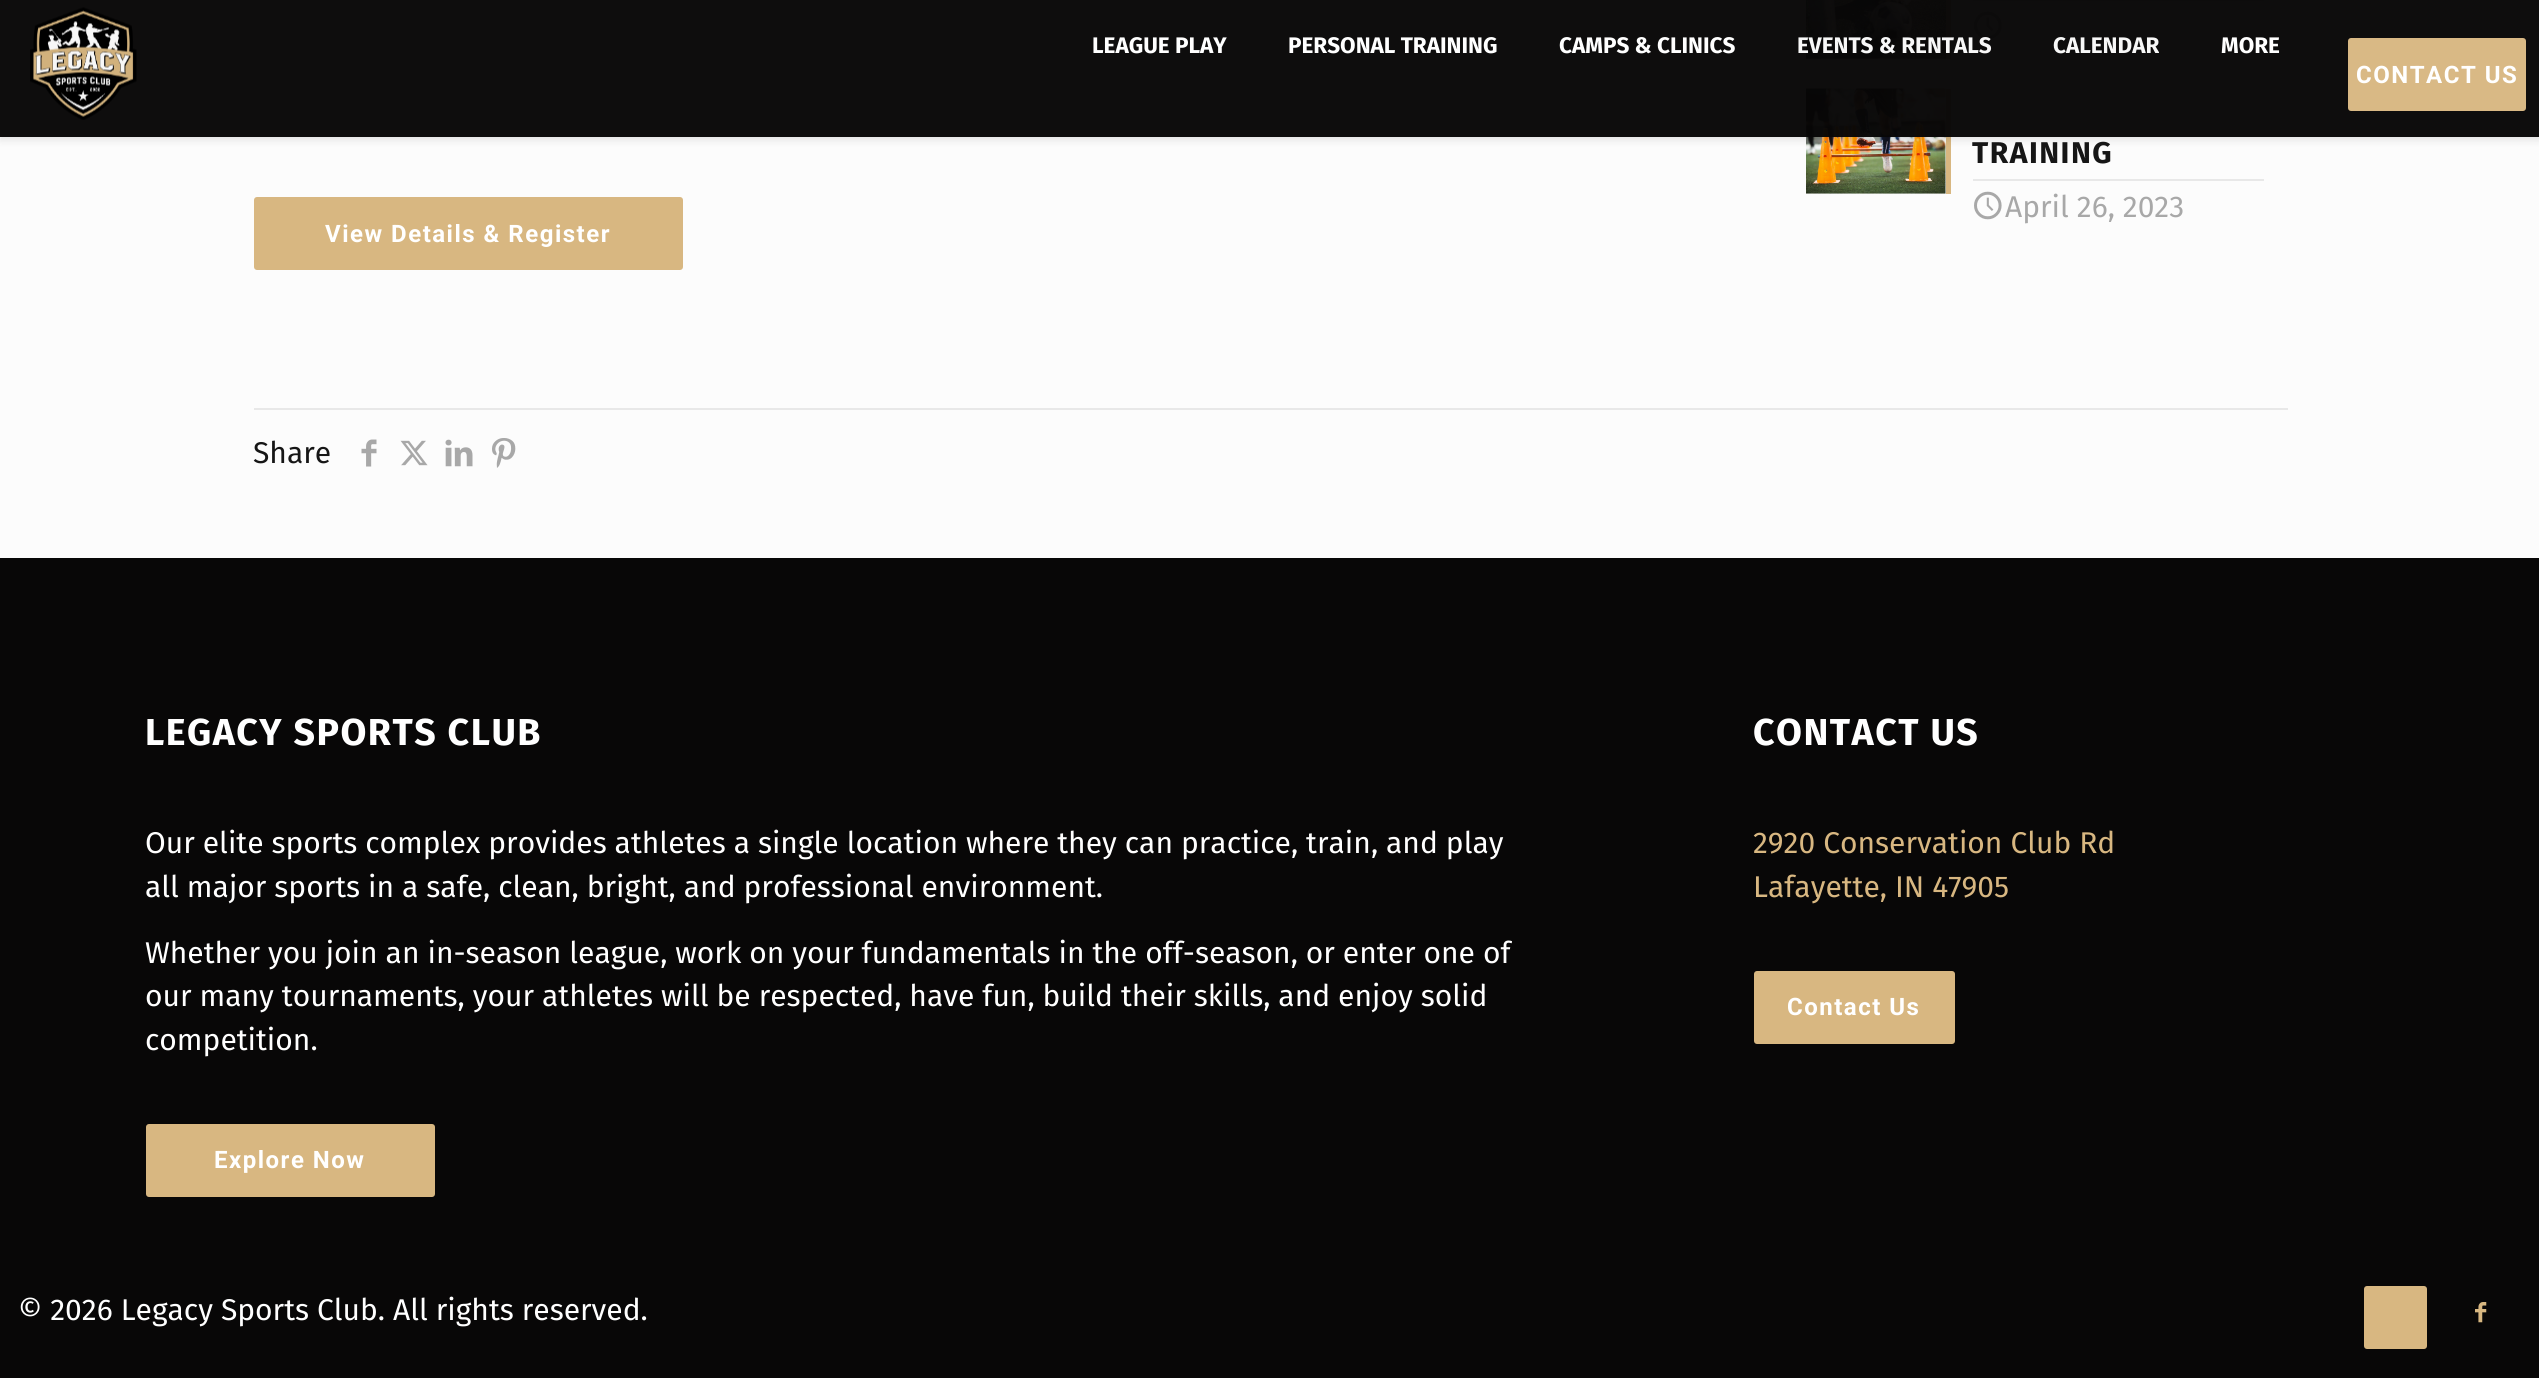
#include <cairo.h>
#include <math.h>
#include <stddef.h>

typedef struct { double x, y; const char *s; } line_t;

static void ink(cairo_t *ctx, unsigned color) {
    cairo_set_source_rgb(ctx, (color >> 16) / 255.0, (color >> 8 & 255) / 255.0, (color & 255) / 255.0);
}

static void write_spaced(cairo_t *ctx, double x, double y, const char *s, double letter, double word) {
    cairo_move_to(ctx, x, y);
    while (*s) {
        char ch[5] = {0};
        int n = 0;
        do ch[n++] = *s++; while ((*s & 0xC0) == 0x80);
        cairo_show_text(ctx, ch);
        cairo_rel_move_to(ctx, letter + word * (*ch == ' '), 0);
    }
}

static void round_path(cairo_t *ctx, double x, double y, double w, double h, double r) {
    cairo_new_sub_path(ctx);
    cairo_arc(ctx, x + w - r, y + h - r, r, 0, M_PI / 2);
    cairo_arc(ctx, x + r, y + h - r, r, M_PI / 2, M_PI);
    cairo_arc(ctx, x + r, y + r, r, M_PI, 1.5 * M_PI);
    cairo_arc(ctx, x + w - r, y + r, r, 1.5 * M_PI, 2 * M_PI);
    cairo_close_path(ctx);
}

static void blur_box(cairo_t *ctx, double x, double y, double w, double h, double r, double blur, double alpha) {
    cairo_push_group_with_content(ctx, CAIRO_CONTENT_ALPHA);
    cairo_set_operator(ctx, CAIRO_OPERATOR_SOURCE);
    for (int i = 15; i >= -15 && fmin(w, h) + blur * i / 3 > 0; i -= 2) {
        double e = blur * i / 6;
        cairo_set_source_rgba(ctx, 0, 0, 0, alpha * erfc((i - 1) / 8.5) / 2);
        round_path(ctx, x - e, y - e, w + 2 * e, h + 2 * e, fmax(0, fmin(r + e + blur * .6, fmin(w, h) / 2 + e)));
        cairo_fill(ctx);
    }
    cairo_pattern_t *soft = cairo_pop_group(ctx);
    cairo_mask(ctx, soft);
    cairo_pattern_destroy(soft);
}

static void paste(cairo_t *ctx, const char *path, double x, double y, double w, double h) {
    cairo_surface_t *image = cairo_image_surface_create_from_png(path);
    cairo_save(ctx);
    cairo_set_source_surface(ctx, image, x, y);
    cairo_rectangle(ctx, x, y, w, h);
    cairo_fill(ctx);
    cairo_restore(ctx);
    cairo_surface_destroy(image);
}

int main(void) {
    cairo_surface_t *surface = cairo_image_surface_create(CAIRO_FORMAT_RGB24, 2539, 1378);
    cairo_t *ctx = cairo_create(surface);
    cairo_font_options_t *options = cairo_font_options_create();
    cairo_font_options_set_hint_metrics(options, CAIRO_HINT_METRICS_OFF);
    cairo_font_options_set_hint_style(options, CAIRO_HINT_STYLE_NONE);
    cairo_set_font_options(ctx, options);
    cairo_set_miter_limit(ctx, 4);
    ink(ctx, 0xFCFCFC);
    cairo_paint(ctx);
    ink(ctx, 0xD8B781);
    cairo_rectangle(ctx, 1946, 0, 5, 59);
    cairo_fill(ctx);
    paste(ctx, "media/2.png", 1806, 0, 140, 59);
    ink(ctx, 0xE8E8E8);
    cairo_rectangle(ctx, 1973, 0, 291, 1);
    cairo_fill(ctx);
    paste(ctx, "media/3.png", 1974, 11, 28, 29);
    ink(ctx, 0xD8B781);
    cairo_rectangle(ctx, 1946, 89, 5, 105);
    cairo_fill(ctx);
    paste(ctx, "media/4.png", 1806, 88, 140, 106);
    cairo_save(ctx);
    cairo_set_fill_rule(ctx, CAIRO_FILL_RULE_EVEN_ODD);
    cairo_new_path(ctx);
    cairo_move_to(ctx, 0, 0);
    cairo_line_to(ctx, 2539, 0);
    cairo_line_to(ctx, 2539, 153);
    cairo_line_to(ctx, 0, 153);
    cairo_close_path(ctx);
    cairo_move_to(ctx, 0, 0);
    cairo_line_to(ctx, 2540, 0);
    cairo_line_to(ctx, 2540, 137);
    cairo_line_to(ctx, 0, 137);
    cairo_close_path(ctx);
    cairo_clip(ctx);
    ink(ctx, 0x000000);
    blur_box(ctx, 0, 3, 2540, 137, 0, 4, 0.1);
    cairo_restore(ctx);
    cairo_set_source_rgba(ctx, 0.031, 0.027, 0.027, 0.97);
    cairo_rectangle(ctx, 0, 0, 2539, 137);
    cairo_fill(ctx);
    paste(ctx, "media/1.png", 30, 7, 107, 113);
    cairo_select_font_face(ctx, "Fira Sans", CAIRO_FONT_SLANT_NORMAL, CAIRO_FONT_WEIGHT_BOLD);
    cairo_set_font_size(ctx, 22.5);
    ink(ctx, 0xFFFFFF);
    {
        static const line_t items[] = {
            {1092, 53, "LEAGUE PLAY"},
            {1288, 53, "PERSONAL TRAINING"},
            {1559, 53, "CAMPS & CLINICS"},
        };
        for (size_t i = 0; i < sizeof items / sizeof *items; i++) {
            cairo_move_to(ctx, items[i].x, items[i].y);
            cairo_show_text(ctx, items[i].s);
        }
    }
    ink(ctx, 0xF8F8F8);
    cairo_move_to(ctx, 1797, 53);
    cairo_show_text(ctx, "EVENTS & RENTALS");
    cairo_move_to(ctx, 2053, 53);
    cairo_show_text(ctx, "CALENDAR");
    ink(ctx, 0xFFFFFF);
    cairo_move_to(ctx, 2221, 53);
    cairo_show_text(ctx, "MORE");
    ink(ctx, 0xD9B985);
    round_path(ctx, 2348, 38, 178, 73, 3);
    cairo_fill(ctx);
    cairo_select_font_face(ctx, "Roboto", CAIRO_FONT_SLANT_NORMAL, CAIRO_FONT_WEIGHT_BOLD);
    cairo_set_font_size(ctx, 24);
    ink(ctx, 0xFFFFFF);
    write_spaced(ctx, 2356, 83, "CONTACT US", 1.5, 0);
    ink(ctx, 0xE8E8E8);
    cairo_rectangle(ctx, 1973, 179, 291, 2);
    cairo_fill(ctx);
    cairo_select_font_face(ctx, "Fira Sans", CAIRO_FONT_SLANT_NORMAL, CAIRO_FONT_WEIGHT_BOLD);
    cairo_set_font_size(ctx, 30);
    ink(ctx, 0x161616);
    write_spaced(ctx, 1972, 163, "TRAINING", 1.5, 0);
    paste(ctx, "media/3.png", 1974, 191, 28, 29);
    cairo_select_font_face(ctx, "Fira Sans", CAIRO_FONT_SLANT_NORMAL, CAIRO_FONT_WEIGHT_NORMAL);
    ink(ctx, 0xA8A8A8);
    cairo_move_to(ctx, 2005, 217);
    cairo_show_text(ctx, "April 26, 2023");
    ink(ctx, 0xD8B781);
    round_path(ctx, 254, 197, 429, 73, 3);
    cairo_fill(ctx);
    cairo_select_font_face(ctx, "Roboto", CAIRO_FONT_SLANT_NORMAL, CAIRO_FONT_WEIGHT_BOLD);
    cairo_set_font_size(ctx, 24);
    ink(ctx, 0xFFFFFF);
    write_spaced(ctx, 325, 242, "View Details & Register", 1.5, 0);
    ink(ctx, 0xE8E8E8);
    cairo_rectangle(ctx, 254, 408, 2034, 2);
    cairo_fill(ctx);
    cairo_select_font_face(ctx, "Fira Sans", CAIRO_FONT_SLANT_NORMAL, CAIRO_FONT_WEIGHT_NORMAL);
    cairo_set_font_size(ctx, 30);
    ink(ctx, 0x161616);
    cairo_move_to(ctx, 253, 463);
    cairo_show_text(ctx, "Share");
    paste(ctx, "media/5.png", 361, 439, 16, 28);
    paste(ctx, "media/6.png", 400, 440, 28, 26);
    paste(ctx, "media/7.png", 445, 439, 28, 28);
    paste(ctx, "media/8.png", 492, 438, 24, 30);
    ink(ctx, 0x080707);
    cairo_rectangle(ctx, 0, 558, 2539, 820);
    cairo_fill(ctx);
    cairo_select_font_face(ctx, "Fira Sans", CAIRO_FONT_SLANT_NORMAL, CAIRO_FONT_WEIGHT_BOLD);
    cairo_set_font_size(ctx, 37.5);
    ink(ctx, 0xFFFFFF);
    write_spaced(ctx, 145, 745, "LEGACY SPORTS CLUB", 1.5, 0);
    cairo_select_font_face(ctx, "Fira Sans", CAIRO_FONT_SLANT_NORMAL, CAIRO_FONT_WEIGHT_NORMAL);
    cairo_set_font_size(ctx, 30);
    {
        static const line_t items[] = {
            {145, 853, "Our elite sports complex provides athletes a single location where they can practice, train, and play"},
            {145, 897, "all major sports in a safe, clean, bright, and professional environment."},
            {145, 963, "Whether you join an in-season league, work on your fundamentals in the off-season, or enter one of"},
            {145, 1006, "our many tournaments, your athletes will be respected, have fun, build their skills, and enjoy solid"},
            {145, 1050, "competition."},
        };
        for (size_t i = 0; i < sizeof items / sizeof *items; i++) {
            cairo_move_to(ctx, items[i].x, items[i].y);
            cairo_show_text(ctx, items[i].s);
        }
    }
    ink(ctx, 0xD8B781);
    round_path(ctx, 146, 1124, 289, 73, 3);
    cairo_fill(ctx);
    cairo_select_font_face(ctx, "Roboto", CAIRO_FONT_SLANT_NORMAL, CAIRO_FONT_WEIGHT_BOLD);
    cairo_set_font_size(ctx, 24);
    ink(ctx, 0xFFFFFF);
    write_spaced(ctx, 214, 1168, "Explore Now", 1.5, 0);
    cairo_select_font_face(ctx, "Fira Sans", CAIRO_FONT_SLANT_NORMAL, CAIRO_FONT_WEIGHT_BOLD);
    cairo_set_font_size(ctx, 37.5);
    write_spaced(ctx, 1753, 745, "CONTACT US", 1.5, 0);
    cairo_select_font_face(ctx, "Fira Sans", CAIRO_FONT_SLANT_NORMAL, CAIRO_FONT_WEIGHT_NORMAL);
    cairo_set_font_size(ctx, 30);
    ink(ctx, 0xD8B781);
    cairo_move_to(ctx, 1753, 853);
    cairo_show_text(ctx, "2920 Conservation Club Rd");
    cairo_move_to(ctx, 1753, 897);
    cairo_show_text(ctx, "Lafayette, IN 47905");
    round_path(ctx, 1754, 971, 201, 73, 3);
    cairo_fill(ctx);
    cairo_select_font_face(ctx, "Roboto", CAIRO_FONT_SLANT_NORMAL, CAIRO_FONT_WEIGHT_BOLD);
    cairo_set_font_size(ctx, 24);
    ink(ctx, 0xFFFFFF);
    write_spaced(ctx, 1787, 1015, "Contact Us", 1.5, 0);
    cairo_select_font_face(ctx, "Fira Sans", CAIRO_FONT_SLANT_NORMAL, CAIRO_FONT_WEIGHT_NORMAL);
    cairo_set_font_size(ctx, 30);
    cairo_move_to(ctx, 18, 1320);
    cairo_show_text(ctx, "© 2026 Legacy Sports Club. All rights reserved.");
    paste(ctx, "media/9.png", 2475, 1302, 12, 21);
    ink(ctx, 0xD8B781);
    round_path(ctx, 2364, 1286, 63, 63, 3);
    cairo_fill(ctx);
    cairo_surface_write_to_png(surface, "image.png");
    cairo_font_options_destroy(options);
    cairo_destroy(ctx);
    cairo_surface_destroy(surface);
    return 0;
}
